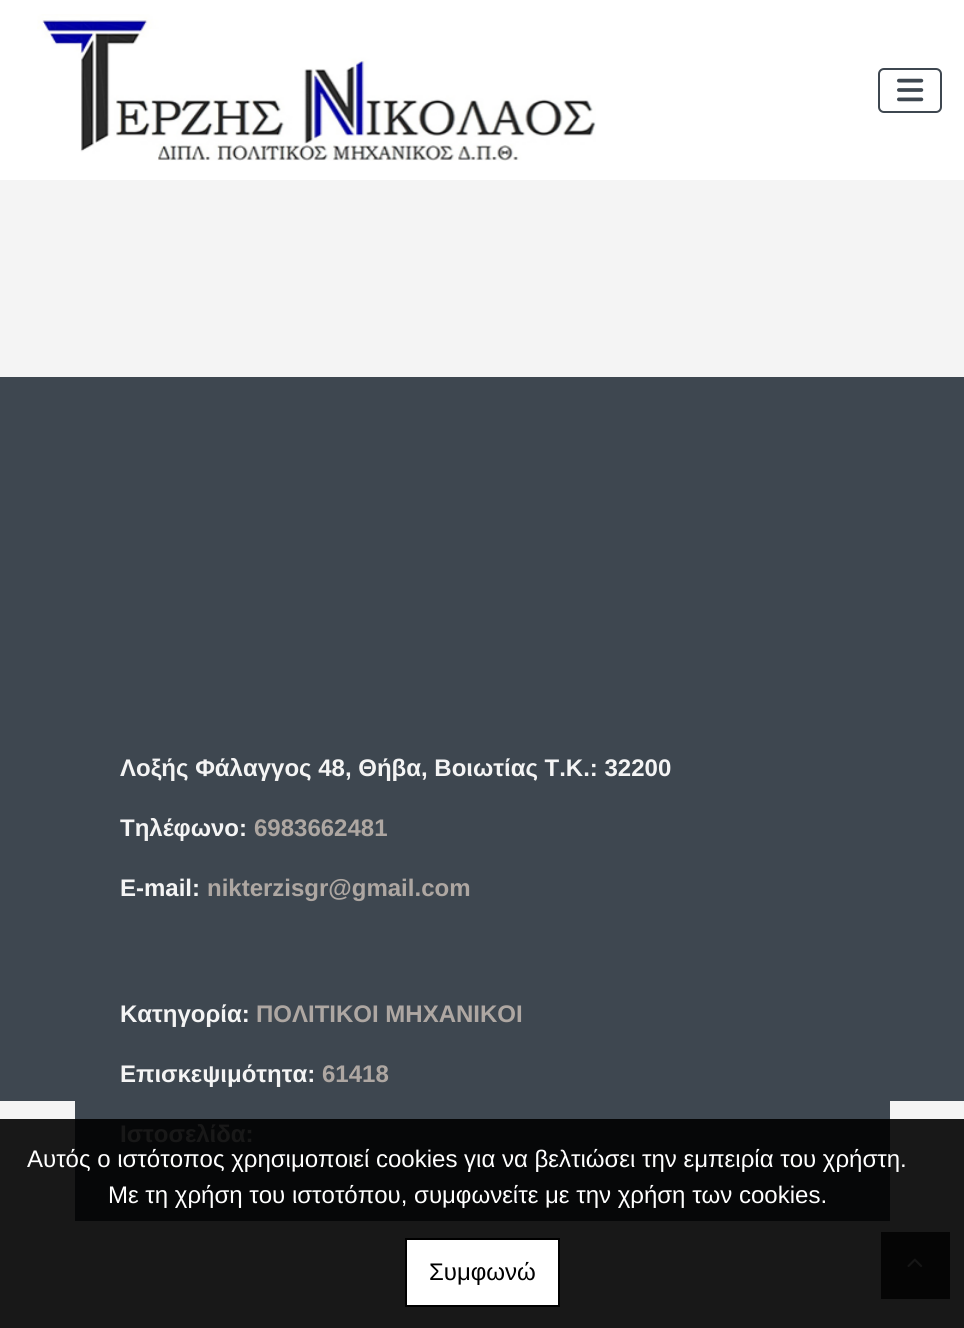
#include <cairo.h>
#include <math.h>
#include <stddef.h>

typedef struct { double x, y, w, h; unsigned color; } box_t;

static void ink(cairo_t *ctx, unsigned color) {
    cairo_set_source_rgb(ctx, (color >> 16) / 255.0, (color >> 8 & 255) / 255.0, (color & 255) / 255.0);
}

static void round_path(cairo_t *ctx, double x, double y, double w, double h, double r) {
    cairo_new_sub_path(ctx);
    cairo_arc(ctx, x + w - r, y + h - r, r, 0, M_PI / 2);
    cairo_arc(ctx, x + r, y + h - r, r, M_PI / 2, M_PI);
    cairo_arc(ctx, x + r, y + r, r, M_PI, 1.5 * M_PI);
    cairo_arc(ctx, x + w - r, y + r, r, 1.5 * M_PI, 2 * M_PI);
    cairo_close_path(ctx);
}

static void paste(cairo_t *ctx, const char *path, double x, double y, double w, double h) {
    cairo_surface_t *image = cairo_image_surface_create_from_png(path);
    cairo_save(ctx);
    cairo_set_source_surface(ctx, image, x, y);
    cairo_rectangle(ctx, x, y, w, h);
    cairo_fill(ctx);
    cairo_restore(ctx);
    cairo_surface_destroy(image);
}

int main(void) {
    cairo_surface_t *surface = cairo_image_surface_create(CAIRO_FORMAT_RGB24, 964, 1328);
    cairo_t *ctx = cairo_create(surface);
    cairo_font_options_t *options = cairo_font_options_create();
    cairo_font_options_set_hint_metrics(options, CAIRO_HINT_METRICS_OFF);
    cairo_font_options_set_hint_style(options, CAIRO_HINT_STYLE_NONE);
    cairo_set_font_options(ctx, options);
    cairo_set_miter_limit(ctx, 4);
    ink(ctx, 0xF4F4F4);
    cairo_paint(ctx);
    ink(ctx, 0x181818);
    cairo_rectangle(ctx, 0, 1119, 964, 209);
    cairo_fill(ctx);
    ink(ctx, 0xFFFFFF);
    cairo_rectangle(ctx, 0, 0, 964, 180);
    cairo_fill(ctx);
    paste(ctx, "media/1.png", 37, 14, 559, 147);
    round_path(ctx, 879, 69, 62, 43, 5);
    ink(ctx, 0x3E4750);
    cairo_stroke(ctx);
    paste(ctx, "media/2.png", 897, 78, 27, 24);
    {
        static const box_t items[] = {
            {0, 377, 964, 724, 0x3E4750},
            {75, 1101, 815, 18, 0x3E4750},
            {75, 1119, 815, 102, 0x060708},
        };
        for (size_t i = 0; i < sizeof items / sizeof *items; i++) {
            ink(ctx, items[i].color);
            cairo_rectangle(ctx, items[i].x, items[i].y, items[i].w, items[i].h);
            cairo_fill(ctx);
        }
    }
    cairo_select_font_face(ctx, "Arimo", CAIRO_FONT_SLANT_NORMAL, CAIRO_FONT_WEIGHT_BOLD);
    cairo_set_font_size(ctx, 24);
    ink(ctx, 0xF4F4F4);
    cairo_move_to(ctx, 120, 776);
    cairo_show_text(ctx, "Λοξής Φάλαγγος 48, Θήβα, Βοιωτίας Τ.Κ.: 32200");
    cairo_move_to(ctx, 120, 836);
    cairo_show_text(ctx, "Τηλέφωνο:");
    ink(ctx, 0xAEA7A2);
    cairo_move_to(ctx, 254, 836);
    cairo_show_text(ctx, "6983662481");
    ink(ctx, 0xF4F4F4);
    cairo_move_to(ctx, 120, 896);
    cairo_show_text(ctx, "E-mail:");
    ink(ctx, 0xAEA7A2);
    cairo_move_to(ctx, 207, 896);
    cairo_show_text(ctx, "nikterzisgr@gmail.com");
    ink(ctx, 0xF4F4F4);
    cairo_move_to(ctx, 120, 1022);
    cairo_show_text(ctx, "Κατηγορία:");
    ink(ctx, 0xAEA7A2);
    cairo_move_to(ctx, 256, 1022);
    cairo_show_text(ctx, "ΠΟΛΙΤΙΚΟΙ ΜΗΧΑΝΙΚΟΙ");
    ink(ctx, 0xF4F4F4);
    cairo_move_to(ctx, 120, 1082);
    cairo_show_text(ctx, "Επισκεψιμότητα:");
    ink(ctx, 0xAEA7A2);
    cairo_move_to(ctx, 322, 1082);
    cairo_show_text(ctx, "61418");
    ink(ctx, 0x181818);
    cairo_move_to(ctx, 120, 1142);
    cairo_show_text(ctx, "Ιστοσελίδα:");
    cairo_select_font_face(ctx, "Arimo", CAIRO_FONT_SLANT_NORMAL, CAIRO_FONT_WEIGHT_NORMAL);
    ink(ctx, 0xFFFFFF);
    cairo_move_to(ctx, 27, 1167);
    cairo_show_text(ctx, "Αυτός ο ιστότοπος χρησιμοποιεί cookies για να βελτιώσει την εμπειρία του χρήστη.");
    cairo_move_to(ctx, 108, 1203);
    cairo_show_text(ctx, "Με τη χρήση του ιστοτόπου, συμφωνείτε με την χρήση των cookies.");
    cairo_rectangle(ctx, 406, 1239, 153, 67);
    cairo_fill_preserve(ctx);
    ink(ctx, 0x000000);
    cairo_stroke(ctx);
    cairo_move_to(ctx, 429, 1280);
    cairo_show_text(ctx, "Συμφωνώ");
    ink(ctx, 0x050505);
    cairo_rectangle(ctx, 881, 1232, 69, 67);
    cairo_fill(ctx);
    paste(ctx, "media/3.png", 907, 1258, 16, 9);
    cairo_surface_write_to_png(surface, "image.png");
    cairo_font_options_destroy(options);
    cairo_destroy(ctx);
    cairo_surface_destroy(surface);
    return 0;
}
